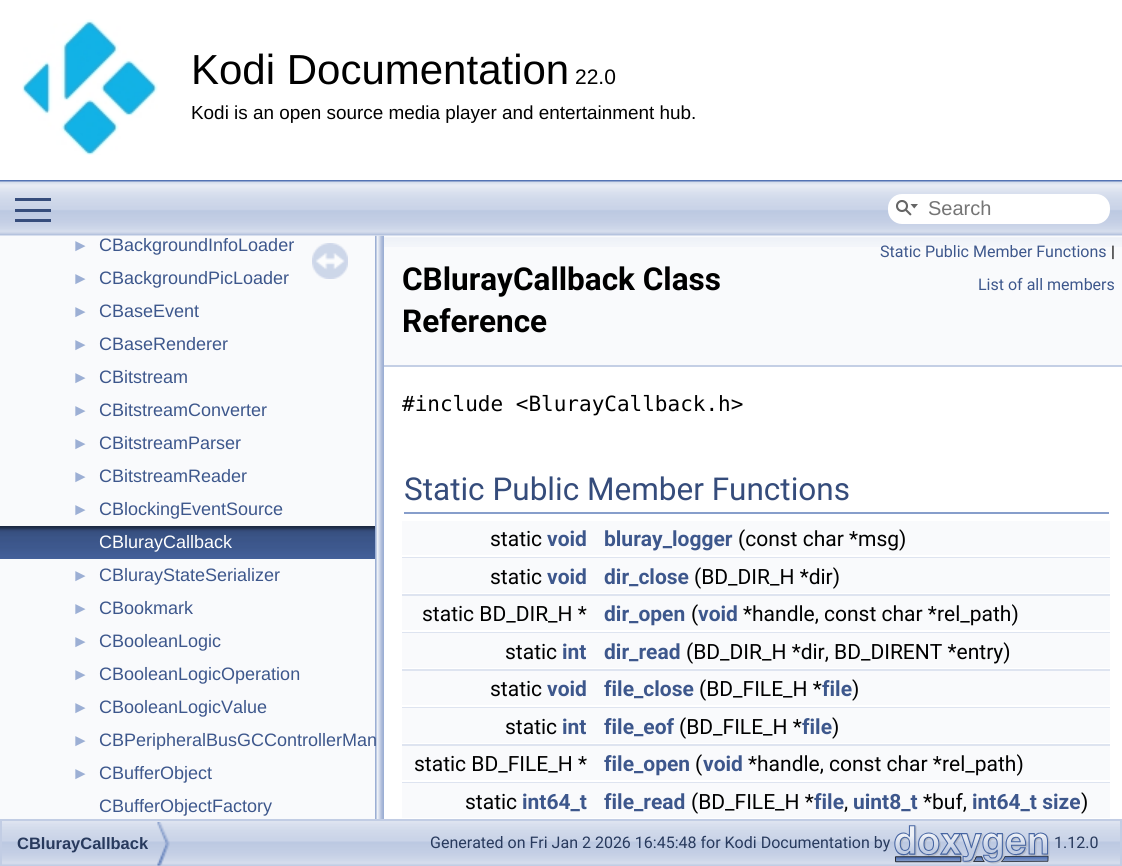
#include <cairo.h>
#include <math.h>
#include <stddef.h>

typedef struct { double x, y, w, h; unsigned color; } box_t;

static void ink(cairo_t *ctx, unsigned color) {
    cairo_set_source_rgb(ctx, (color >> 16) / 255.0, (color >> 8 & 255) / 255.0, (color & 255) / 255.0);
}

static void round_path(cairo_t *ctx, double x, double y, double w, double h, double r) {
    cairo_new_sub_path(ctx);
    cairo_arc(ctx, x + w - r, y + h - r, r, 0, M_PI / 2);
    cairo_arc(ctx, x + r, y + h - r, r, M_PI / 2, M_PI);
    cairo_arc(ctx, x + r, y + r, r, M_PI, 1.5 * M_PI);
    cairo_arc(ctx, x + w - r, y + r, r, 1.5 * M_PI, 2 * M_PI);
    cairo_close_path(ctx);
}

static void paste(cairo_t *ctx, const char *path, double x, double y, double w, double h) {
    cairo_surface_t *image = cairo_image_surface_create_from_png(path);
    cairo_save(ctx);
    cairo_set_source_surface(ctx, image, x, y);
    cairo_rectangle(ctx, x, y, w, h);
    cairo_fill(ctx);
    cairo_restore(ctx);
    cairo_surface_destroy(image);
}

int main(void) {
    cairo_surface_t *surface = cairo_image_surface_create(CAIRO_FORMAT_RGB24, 1122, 866);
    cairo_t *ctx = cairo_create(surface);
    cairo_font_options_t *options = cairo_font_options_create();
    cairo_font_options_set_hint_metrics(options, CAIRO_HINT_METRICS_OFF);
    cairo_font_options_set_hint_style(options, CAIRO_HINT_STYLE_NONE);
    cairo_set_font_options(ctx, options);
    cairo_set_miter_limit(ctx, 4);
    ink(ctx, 0xFFFFFF);
    cairo_paint(ctx);
    ink(ctx, 0x5373B4);
    cairo_rectangle(ctx, 0, 180, 1122, 2);
    cairo_fill(ctx);
    paste(ctx, "media/1.png", 22, 19, 136, 136);
    cairo_select_font_face(ctx, "Liberation Sans", CAIRO_FONT_SLANT_NORMAL, CAIRO_FONT_WEIGHT_NORMAL);
    cairo_set_font_size(ctx, 42);
    ink(ctx, 0x000000);
    cairo_move_to(ctx, 191, 84);
    cairo_show_text(ctx, "Kodi Documentation");
    cairo_set_font_size(ctx, 21);
    cairo_move_to(ctx, 575, 84);
    cairo_show_text(ctx, "22.0");
    cairo_set_font_size(ctx, 18.9);
    cairo_move_to(ctx, 191, 119);
    cairo_show_text(ctx, "Kodi is an open source media player and entertainment hub.");
    paste(ctx, "media/6.png", 375, 235, 9, 584);
    paste(ctx, "media/2.png", 0, 181, 1122, 55);
    {
        static const box_t items[] = {
            {15, 209, 36, 3, 0x364D7C},
            {15, 198, 36, 3, 0x364D7C},
            {15, 219, 36, 3, 0x364D7C},
        };
        for (size_t i = 0; i < sizeof items / sizeof *items; i++) {
            ink(ctx, items[i].color);
            cairo_rectangle(ctx, items[i].x, items[i].y, items[i].w, items[i].h);
            cairo_fill(ctx);
        }
    }
    ink(ctx, 0xFFFFFF);
    round_path(ctx, 888, 194, 222, 30, 14);
    cairo_fill(ctx);
    paste(ctx, "media/3.png", 896, 200, 22, 16);
    cairo_set_font_size(ctx, 20);
    ink(ctx, 0x757575);
    cairo_move_to(ctx, 928, 215);
    cairo_show_text(ctx, "Search");
    ink(ctx, 0xF9FAFC);
    cairo_rectangle(ctx, 0, 236, 375, 583);
    cairo_fill(ctx);
    cairo_set_font_size(ctx, 17);
    ink(ctx, 0x9CAFD4);
    cairo_move_to(ctx, 72, 251);
    cairo_show_text(ctx, "►");
    cairo_set_font_size(ctx, 18);
    ink(ctx, 0x3D578C);
    cairo_move_to(ctx, 99, 251);
    cairo_show_text(ctx, "CBackgroundInfoLoader");
    cairo_set_font_size(ctx, 17);
    ink(ctx, 0x9CAFD4);
    cairo_move_to(ctx, 72, 284);
    cairo_show_text(ctx, "►");
    cairo_set_font_size(ctx, 18);
    ink(ctx, 0x3D578C);
    cairo_move_to(ctx, 99, 284);
    cairo_show_text(ctx, "CBackgroundPicLoader");
    cairo_set_font_size(ctx, 17);
    ink(ctx, 0x9CAFD4);
    cairo_move_to(ctx, 72, 317);
    cairo_show_text(ctx, "►");
    cairo_set_font_size(ctx, 18);
    ink(ctx, 0x3D578C);
    cairo_move_to(ctx, 99, 317);
    cairo_show_text(ctx, "CBaseEvent");
    cairo_set_font_size(ctx, 17);
    ink(ctx, 0x9CAFD4);
    cairo_move_to(ctx, 72, 350);
    cairo_show_text(ctx, "►");
    cairo_set_font_size(ctx, 18);
    ink(ctx, 0x3D578C);
    cairo_move_to(ctx, 99, 350);
    cairo_show_text(ctx, "CBaseRenderer");
    cairo_set_font_size(ctx, 17);
    ink(ctx, 0x9CAFD4);
    cairo_move_to(ctx, 72, 383);
    cairo_show_text(ctx, "►");
    cairo_set_font_size(ctx, 18);
    ink(ctx, 0x3D578C);
    cairo_move_to(ctx, 99, 383);
    cairo_show_text(ctx, "CBitstream");
    cairo_set_font_size(ctx, 17);
    ink(ctx, 0x9CAFD4);
    cairo_move_to(ctx, 72, 416);
    cairo_show_text(ctx, "►");
    cairo_set_font_size(ctx, 18);
    ink(ctx, 0x3D578C);
    cairo_move_to(ctx, 99, 416);
    cairo_show_text(ctx, "CBitstreamConverter");
    cairo_set_font_size(ctx, 17);
    ink(ctx, 0x9CAFD4);
    cairo_move_to(ctx, 72, 449);
    cairo_show_text(ctx, "►");
    cairo_set_font_size(ctx, 18);
    ink(ctx, 0x3D578C);
    cairo_move_to(ctx, 99, 449);
    cairo_show_text(ctx, "CBitstreamParser");
    cairo_set_font_size(ctx, 17);
    ink(ctx, 0x9CAFD4);
    cairo_move_to(ctx, 72, 482);
    cairo_show_text(ctx, "►");
    cairo_set_font_size(ctx, 18);
    ink(ctx, 0x3D578C);
    cairo_move_to(ctx, 99, 482);
    cairo_show_text(ctx, "CBitstreamReader");
    cairo_set_font_size(ctx, 17);
    ink(ctx, 0x9CAFD4);
    cairo_move_to(ctx, 72, 515);
    cairo_show_text(ctx, "►");
    cairo_set_font_size(ctx, 18);
    ink(ctx, 0x3D578C);
    cairo_move_to(ctx, 99, 515);
    cairo_show_text(ctx, "CBlockingEventSource");
    paste(ctx, "media/4.png", 0, 526, 375, 33);
    ink(ctx, 0xFFFFFF);
    cairo_move_to(ctx, 99, 548);
    cairo_show_text(ctx, "CBlurayCallback");
    cairo_set_font_size(ctx, 17);
    ink(ctx, 0x9CAFD4);
    cairo_move_to(ctx, 72, 581);
    cairo_show_text(ctx, "►");
    cairo_set_font_size(ctx, 18);
    ink(ctx, 0x3D578C);
    cairo_move_to(ctx, 99, 581);
    cairo_show_text(ctx, "CBlurayStateSerializer");
    cairo_set_font_size(ctx, 17);
    ink(ctx, 0x9CAFD4);
    cairo_move_to(ctx, 72, 614);
    cairo_show_text(ctx, "►");
    cairo_set_font_size(ctx, 18);
    ink(ctx, 0x3D578C);
    cairo_move_to(ctx, 99, 614);
    cairo_show_text(ctx, "CBookmark");
    cairo_set_font_size(ctx, 17);
    ink(ctx, 0x9CAFD4);
    cairo_move_to(ctx, 72, 647);
    cairo_show_text(ctx, "►");
    cairo_set_font_size(ctx, 18);
    ink(ctx, 0x3D578C);
    cairo_move_to(ctx, 99, 647);
    cairo_show_text(ctx, "CBooleanLogic");
    cairo_set_font_size(ctx, 17);
    ink(ctx, 0x9CAFD4);
    cairo_move_to(ctx, 72, 680);
    cairo_show_text(ctx, "►");
    cairo_set_font_size(ctx, 18);
    ink(ctx, 0x3D578C);
    cairo_move_to(ctx, 99, 680);
    cairo_show_text(ctx, "CBooleanLogicOperation");
    cairo_set_font_size(ctx, 17);
    ink(ctx, 0x9CAFD4);
    cairo_move_to(ctx, 72, 713);
    cairo_show_text(ctx, "►");
    cairo_set_font_size(ctx, 18);
    ink(ctx, 0x3D578C);
    cairo_move_to(ctx, 99, 713);
    cairo_show_text(ctx, "CBooleanLogicValue");
    cairo_set_font_size(ctx, 17);
    ink(ctx, 0x9CAFD4);
    cairo_move_to(ctx, 72, 746);
    cairo_show_text(ctx, "►");
    cairo_set_font_size(ctx, 18);
    ink(ctx, 0x3D578C);
    cairo_move_to(ctx, 99, 746);
    cairo_show_text(ctx, "CBPeripheralBusGCControllerMan");
    cairo_set_font_size(ctx, 17);
    ink(ctx, 0x9CAFD4);
    cairo_move_to(ctx, 72, 779);
    cairo_show_text(ctx, "►");
    cairo_set_font_size(ctx, 18);
    ink(ctx, 0x3D578C);
    cairo_move_to(ctx, 99, 779);
    cairo_show_text(ctx, "CBufferObject");
    cairo_move_to(ctx, 99, 812);
    cairo_show_text(ctx, "CBufferObjectFactory");
    paste(ctx, "media/5.png", 312, 243, 36, 36);
    ink(ctx, 0xF9FAFC);
    cairo_rectangle(ctx, 384, 236, 738, 129);
    cairo_fill(ctx);
    paste(ctx, "media/7.png", 384, 237, 738, 10);
    ink(ctx, 0xC4CFE5);
    cairo_rectangle(ctx, 384, 365, 738, 2);
    cairo_fill(ctx);
    cairo_select_font_face(ctx, "Roboto", CAIRO_FONT_SLANT_NORMAL, CAIRO_FONT_WEIGHT_BOLD);
    cairo_set_font_size(ctx, 31.5);
    ink(ctx, 0x000000);
    cairo_move_to(ctx, 402, 290);
    cairo_show_text(ctx, "CBlurayCallback Class");
    cairo_move_to(ctx, 402, 332);
    cairo_show_text(ctx, "Reference");
    cairo_select_font_face(ctx, "Roboto", CAIRO_FONT_SLANT_NORMAL, CAIRO_FONT_WEIGHT_NORMAL);
    cairo_set_font_size(ctx, 16);
    ink(ctx, 0x3D578C);
    cairo_move_to(ctx, 880, 257);
    cairo_show_text(ctx, "Static Public Member Functions");
    ink(ctx, 0x000000);
    cairo_move_to(ctx, 1111, 257);
    cairo_show_text(ctx, "|");
    ink(ctx, 0x3D578C);
    cairo_move_to(ctx, 978, 290);
    cairo_show_text(ctx, "List of all members");
    cairo_select_font_face(ctx, "DejaVu Sans Mono", CAIRO_FONT_SLANT_NORMAL, CAIRO_FONT_WEIGHT_NORMAL);
    cairo_set_font_size(ctx, 21);
    ink(ctx, 0x000000);
    cairo_move_to(ctx, 402, 411);
    cairo_show_text(ctx, "#include <BlurayCallback.h>");
    ink(ctx, 0x879ECB);
    cairo_rectangle(ctx, 404, 512, 705, 2);
    cairo_fill(ctx);
    cairo_select_font_face(ctx, "Roboto", CAIRO_FONT_SLANT_NORMAL, CAIRO_FONT_WEIGHT_NORMAL);
    cairo_set_font_size(ctx, 31.5);
    ink(ctx, 0x354C7B);
    cairo_move_to(ctx, 404, 500);
    cairo_show_text(ctx, "Static Public Member Functions");
    ink(ctx, 0xF9FAFC);
    cairo_rectangle(ctx, 402, 521, 708, 34);
    cairo_fill(ctx);
    cairo_set_font_size(ctx, 21);
    ink(ctx, 0x000000);
    cairo_move_to(ctx, 490, 546);
    cairo_show_text(ctx, "static");
    cairo_select_font_face(ctx, "Roboto", CAIRO_FONT_SLANT_NORMAL, CAIRO_FONT_WEIGHT_BOLD);
    ink(ctx, 0x3D578C);
    cairo_move_to(ctx, 547, 546);
    cairo_show_text(ctx, "void");
    cairo_move_to(ctx, 604, 546);
    cairo_show_text(ctx, "bluray_logger");
    cairo_select_font_face(ctx, "Roboto", CAIRO_FONT_SLANT_NORMAL, CAIRO_FONT_WEIGHT_NORMAL);
    ink(ctx, 0x000000);
    cairo_move_to(ctx, 738, 546);
    cairo_show_text(ctx, "(const char *msg)");
    ink(ctx, 0xDEE4F0);
    cairo_rectangle(ctx, 402, 557, 708, 1);
    cairo_fill(ctx);
    ink(ctx, 0xF9FAFC);
    cairo_rectangle(ctx, 402, 558, 708, 35);
    cairo_fill(ctx);
    ink(ctx, 0x000000);
    cairo_move_to(ctx, 490, 584);
    cairo_show_text(ctx, "static");
    cairo_select_font_face(ctx, "Roboto", CAIRO_FONT_SLANT_NORMAL, CAIRO_FONT_WEIGHT_BOLD);
    ink(ctx, 0x3D578C);
    cairo_move_to(ctx, 547, 584);
    cairo_show_text(ctx, "void");
    cairo_move_to(ctx, 604, 584);
    cairo_show_text(ctx, "dir_close");
    cairo_select_font_face(ctx, "Roboto", CAIRO_FONT_SLANT_NORMAL, CAIRO_FONT_WEIGHT_NORMAL);
    ink(ctx, 0x000000);
    cairo_move_to(ctx, 694, 584);
    cairo_show_text(ctx, "(BD_DIR_H *dir)");
    ink(ctx, 0xDEE4F0);
    cairo_rectangle(ctx, 402, 594, 708, 2);
    cairo_fill(ctx);
    ink(ctx, 0xF9FAFC);
    cairo_rectangle(ctx, 402, 596, 708, 34);
    cairo_fill(ctx);
    ink(ctx, 0x000000);
    cairo_move_to(ctx, 422, 621);
    cairo_show_text(ctx, "static BD_DIR_H *");
    cairo_select_font_face(ctx, "Roboto", CAIRO_FONT_SLANT_NORMAL, CAIRO_FONT_WEIGHT_BOLD);
    ink(ctx, 0x3D578C);
    cairo_move_to(ctx, 604, 621);
    cairo_show_text(ctx, "dir_open");
    cairo_select_font_face(ctx, "Roboto", CAIRO_FONT_SLANT_NORMAL, CAIRO_FONT_WEIGHT_NORMAL);
    ink(ctx, 0x000000);
    cairo_move_to(ctx, 691, 621);
    cairo_show_text(ctx, "(");
    cairo_select_font_face(ctx, "Roboto", CAIRO_FONT_SLANT_NORMAL, CAIRO_FONT_WEIGHT_BOLD);
    ink(ctx, 0x3D578C);
    cairo_move_to(ctx, 698, 621);
    cairo_show_text(ctx, "void");
    cairo_select_font_face(ctx, "Roboto", CAIRO_FONT_SLANT_NORMAL, CAIRO_FONT_WEIGHT_NORMAL);
    ink(ctx, 0x000000);
    cairo_move_to(ctx, 743, 621);
    cairo_show_text(ctx, "*handle, const char *rel_path)");
    ink(ctx, 0xDEE4F0);
    cairo_rectangle(ctx, 402, 632, 708, 1);
    cairo_fill(ctx);
    ink(ctx, 0xF9FAFC);
    cairo_rectangle(ctx, 402, 633, 708, 35);
    cairo_fill(ctx);
    ink(ctx, 0x000000);
    cairo_move_to(ctx, 505, 659);
    cairo_show_text(ctx, "static");
    cairo_select_font_face(ctx, "Roboto", CAIRO_FONT_SLANT_NORMAL, CAIRO_FONT_WEIGHT_BOLD);
    ink(ctx, 0x3D578C);
    cairo_move_to(ctx, 562, 659);
    cairo_show_text(ctx, "int");
    cairo_move_to(ctx, 604, 659);
    cairo_show_text(ctx, "dir_read");
    cairo_select_font_face(ctx, "Roboto", CAIRO_FONT_SLANT_NORMAL, CAIRO_FONT_WEIGHT_NORMAL);
    ink(ctx, 0x000000);
    cairo_move_to(ctx, 686, 659);
    cairo_show_text(ctx, "(BD_DIR_H *dir, BD_DIRENT *entry)");
    ink(ctx, 0xDEE4F0);
    cairo_rectangle(ctx, 402, 669, 708, 2);
    cairo_fill(ctx);
    ink(ctx, 0xF9FAFC);
    cairo_rectangle(ctx, 402, 671, 708, 34);
    cairo_fill(ctx);
    ink(ctx, 0x000000);
    cairo_move_to(ctx, 490, 696);
    cairo_show_text(ctx, "static");
    cairo_select_font_face(ctx, "Roboto", CAIRO_FONT_SLANT_NORMAL, CAIRO_FONT_WEIGHT_BOLD);
    ink(ctx, 0x3D578C);
    cairo_move_to(ctx, 547, 696);
    cairo_show_text(ctx, "void");
    cairo_move_to(ctx, 604, 696);
    cairo_show_text(ctx, "file_close");
    cairo_select_font_face(ctx, "Roboto", CAIRO_FONT_SLANT_NORMAL, CAIRO_FONT_WEIGHT_NORMAL);
    ink(ctx, 0x000000);
    cairo_move_to(ctx, 699, 696);
    cairo_show_text(ctx, "(BD_FILE_H *");
    cairo_select_font_face(ctx, "Roboto", CAIRO_FONT_SLANT_NORMAL, CAIRO_FONT_WEIGHT_BOLD);
    ink(ctx, 0x3D578C);
    cairo_move_to(ctx, 822, 696);
    cairo_show_text(ctx, "file");
    cairo_select_font_face(ctx, "Roboto", CAIRO_FONT_SLANT_NORMAL, CAIRO_FONT_WEIGHT_NORMAL);
    ink(ctx, 0x000000);
    cairo_move_to(ctx, 852, 696);
    cairo_show_text(ctx, ")");
    ink(ctx, 0xDEE4F0);
    cairo_rectangle(ctx, 402, 707, 708, 1);
    cairo_fill(ctx);
    ink(ctx, 0xF9FAFC);
    cairo_rectangle(ctx, 402, 708, 708, 35);
    cairo_fill(ctx);
    ink(ctx, 0x000000);
    cairo_move_to(ctx, 505, 734);
    cairo_show_text(ctx, "static");
    cairo_select_font_face(ctx, "Roboto", CAIRO_FONT_SLANT_NORMAL, CAIRO_FONT_WEIGHT_BOLD);
    ink(ctx, 0x3D578C);
    cairo_move_to(ctx, 562, 734);
    cairo_show_text(ctx, "int");
    cairo_move_to(ctx, 604, 734);
    cairo_show_text(ctx, "file_eof");
    cairo_select_font_face(ctx, "Roboto", CAIRO_FONT_SLANT_NORMAL, CAIRO_FONT_WEIGHT_NORMAL);
    ink(ctx, 0x000000);
    cairo_move_to(ctx, 679, 734);
    cairo_show_text(ctx, "(BD_FILE_H *");
    cairo_select_font_face(ctx, "Roboto", CAIRO_FONT_SLANT_NORMAL, CAIRO_FONT_WEIGHT_BOLD);
    ink(ctx, 0x3D578C);
    cairo_move_to(ctx, 802, 734);
    cairo_show_text(ctx, "file");
    cairo_select_font_face(ctx, "Roboto", CAIRO_FONT_SLANT_NORMAL, CAIRO_FONT_WEIGHT_NORMAL);
    ink(ctx, 0x000000);
    cairo_move_to(ctx, 832, 734);
    cairo_show_text(ctx, ")");
    ink(ctx, 0xDEE4F0);
    cairo_rectangle(ctx, 402, 744, 708, 2);
    cairo_fill(ctx);
    ink(ctx, 0xF9FAFC);
    cairo_rectangle(ctx, 402, 746, 708, 34);
    cairo_fill(ctx);
    ink(ctx, 0x000000);
    cairo_move_to(ctx, 414, 771);
    cairo_show_text(ctx, "static BD_FILE_H *");
    cairo_select_font_face(ctx, "Roboto", CAIRO_FONT_SLANT_NORMAL, CAIRO_FONT_WEIGHT_BOLD);
    ink(ctx, 0x3D578C);
    cairo_move_to(ctx, 604, 771);
    cairo_show_text(ctx, "file_open");
    cairo_select_font_face(ctx, "Roboto", CAIRO_FONT_SLANT_NORMAL, CAIRO_FONT_WEIGHT_NORMAL);
    ink(ctx, 0x000000);
    cairo_move_to(ctx, 695, 771);
    cairo_show_text(ctx, "(");
    cairo_select_font_face(ctx, "Roboto", CAIRO_FONT_SLANT_NORMAL, CAIRO_FONT_WEIGHT_BOLD);
    ink(ctx, 0x3D578C);
    cairo_move_to(ctx, 703, 771);
    cairo_show_text(ctx, "void");
    cairo_select_font_face(ctx, "Roboto", CAIRO_FONT_SLANT_NORMAL, CAIRO_FONT_WEIGHT_NORMAL);
    ink(ctx, 0x000000);
    cairo_move_to(ctx, 748, 771);
    cairo_show_text(ctx, "*handle, const char *rel_path)");
    ink(ctx, 0xDEE4F0);
    cairo_rectangle(ctx, 402, 782, 708, 1);
    cairo_fill(ctx);
    ink(ctx, 0xF9FAFC);
    cairo_rectangle(ctx, 402, 783, 708, 35);
    cairo_fill(ctx);
    ink(ctx, 0x000000);
    cairo_move_to(ctx, 465, 809);
    cairo_show_text(ctx, "static");
    cairo_select_font_face(ctx, "Roboto", CAIRO_FONT_SLANT_NORMAL, CAIRO_FONT_WEIGHT_BOLD);
    ink(ctx, 0x3D578C);
    cairo_move_to(ctx, 522, 809);
    cairo_show_text(ctx, "int64_t");
    cairo_move_to(ctx, 604, 809);
    cairo_show_text(ctx, "file_read");
    cairo_select_font_face(ctx, "Roboto", CAIRO_FONT_SLANT_NORMAL, CAIRO_FONT_WEIGHT_NORMAL);
    ink(ctx, 0x000000);
    cairo_move_to(ctx, 691, 809);
    cairo_show_text(ctx, "(BD_FILE_H *");
    cairo_select_font_face(ctx, "Roboto", CAIRO_FONT_SLANT_NORMAL, CAIRO_FONT_WEIGHT_BOLD);
    ink(ctx, 0x3D578C);
    cairo_move_to(ctx, 814, 809);
    cairo_show_text(ctx, "file");
    cairo_select_font_face(ctx, "Roboto", CAIRO_FONT_SLANT_NORMAL, CAIRO_FONT_WEIGHT_NORMAL);
    ink(ctx, 0x000000);
    cairo_move_to(ctx, 844, 809);
    cairo_show_text(ctx, ",");
    cairo_select_font_face(ctx, "Roboto", CAIRO_FONT_SLANT_NORMAL, CAIRO_FONT_WEIGHT_BOLD);
    ink(ctx, 0x3D578C);
    cairo_move_to(ctx, 853, 809);
    cairo_show_text(ctx, "uint8_t");
    cairo_select_font_face(ctx, "Roboto", CAIRO_FONT_SLANT_NORMAL, CAIRO_FONT_WEIGHT_NORMAL);
    ink(ctx, 0x000000);
    cairo_move_to(ctx, 923, 809);
    cairo_show_text(ctx, "*buf,");
    cairo_select_font_face(ctx, "Roboto", CAIRO_FONT_SLANT_NORMAL, CAIRO_FONT_WEIGHT_BOLD);
    ink(ctx, 0x3D578C);
    cairo_move_to(ctx, 972, 809);
    cairo_show_text(ctx, "int64_t size");
    cairo_select_font_face(ctx, "Roboto", CAIRO_FONT_SLANT_NORMAL, CAIRO_FONT_WEIGHT_NORMAL);
    ink(ctx, 0x000000);
    cairo_move_to(ctx, 1081, 809);
    cairo_show_text(ctx, ")");
    paste(ctx, "media/8.png", 2, 821, 1118, 44);
    cairo_rectangle(ctx, 1, 820, 1120, 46);
    ink(ctx, 0xC2CDE4);
    cairo_stroke(ctx);
    paste(ctx, "media/9.png", 157, 822, 13, 44);
    cairo_select_font_face(ctx, "Liberation Sans", CAIRO_FONT_SLANT_NORMAL, CAIRO_FONT_WEIGHT_BOLD);
    cairo_set_font_size(ctx, 16.5);
    ink(ctx, 0x283A5D);
    cairo_move_to(ctx, 17, 849);
    cairo_show_text(ctx, "CBlurayCallback");
    cairo_select_font_face(ctx, "Roboto", CAIRO_FONT_SLANT_NORMAL, CAIRO_FONT_WEIGHT_NORMAL);
    cairo_set_font_size(ctx, 16);
    cairo_move_to(ctx, 430, 848);
    cairo_show_text(ctx, "Generated on Fri Jan 2 2026 16:45:48 for Kodi Documentation by");
    paste(ctx, "media/10.png", 894, 825, 156, 39);
    cairo_move_to(ctx, 1054, 848);
    cairo_show_text(ctx, "1.12.0");
    cairo_surface_write_to_png(surface, "image.png");
    cairo_font_options_destroy(options);
    cairo_destroy(ctx);
    cairo_surface_destroy(surface);
    return 0;
}
